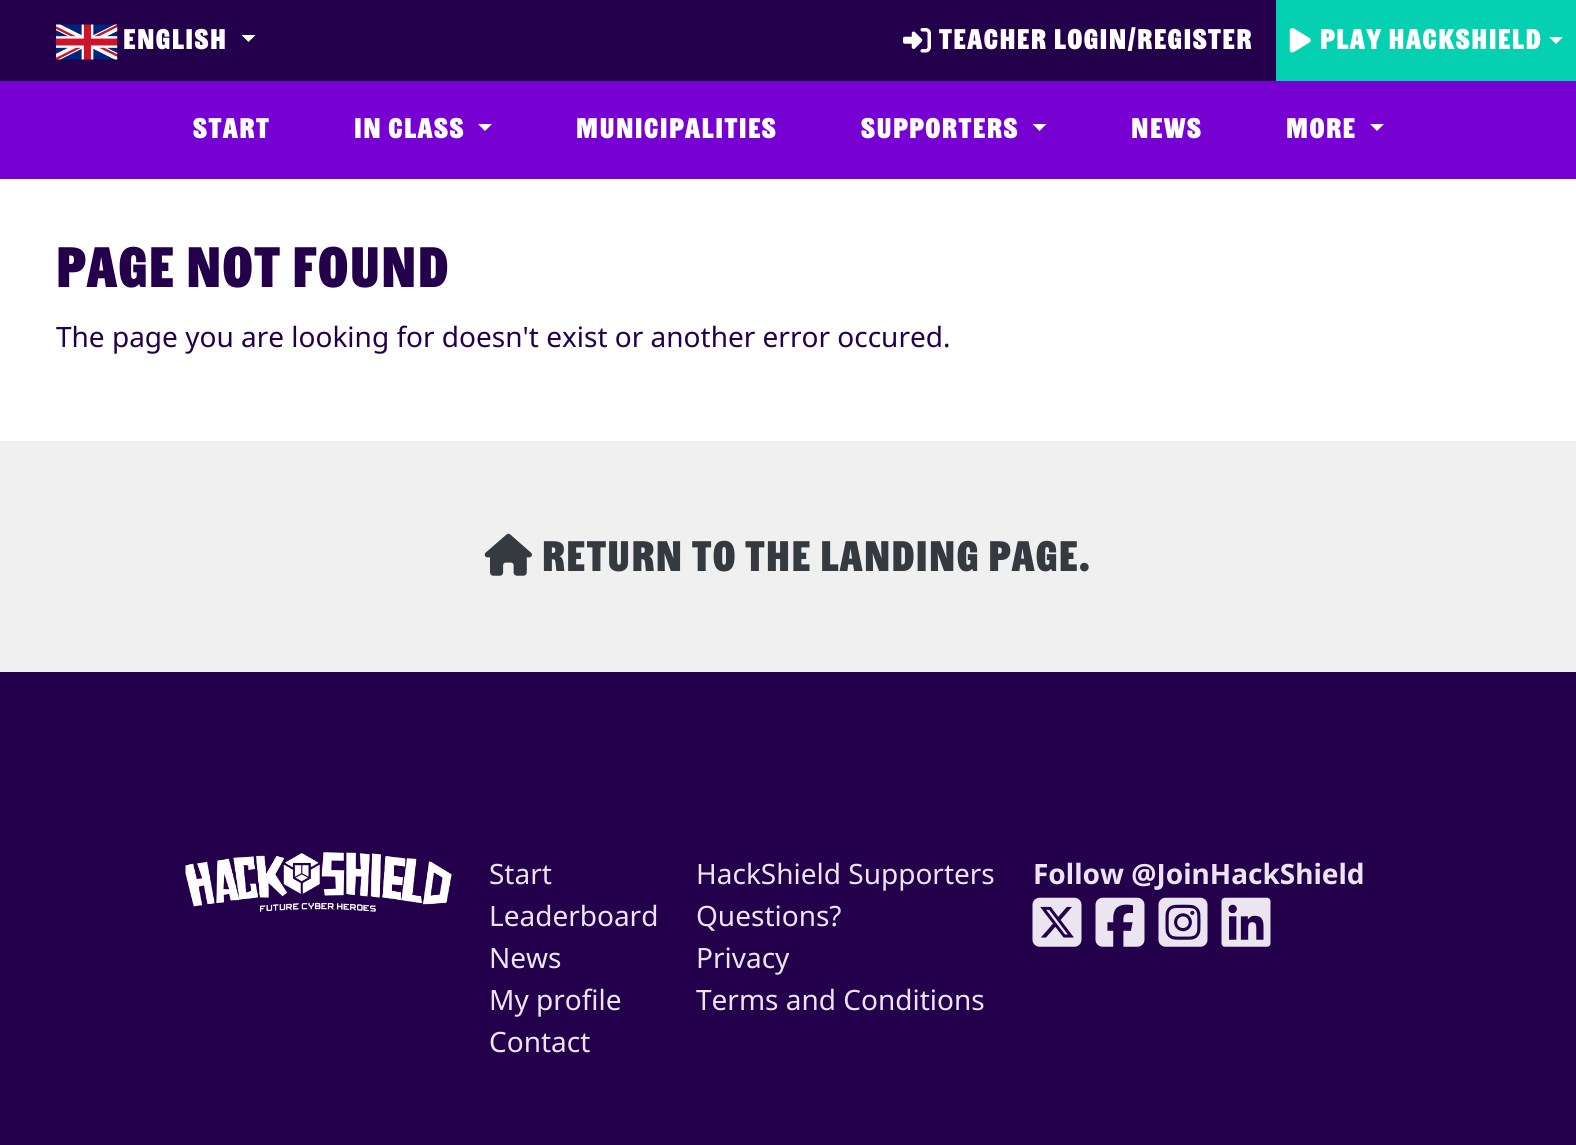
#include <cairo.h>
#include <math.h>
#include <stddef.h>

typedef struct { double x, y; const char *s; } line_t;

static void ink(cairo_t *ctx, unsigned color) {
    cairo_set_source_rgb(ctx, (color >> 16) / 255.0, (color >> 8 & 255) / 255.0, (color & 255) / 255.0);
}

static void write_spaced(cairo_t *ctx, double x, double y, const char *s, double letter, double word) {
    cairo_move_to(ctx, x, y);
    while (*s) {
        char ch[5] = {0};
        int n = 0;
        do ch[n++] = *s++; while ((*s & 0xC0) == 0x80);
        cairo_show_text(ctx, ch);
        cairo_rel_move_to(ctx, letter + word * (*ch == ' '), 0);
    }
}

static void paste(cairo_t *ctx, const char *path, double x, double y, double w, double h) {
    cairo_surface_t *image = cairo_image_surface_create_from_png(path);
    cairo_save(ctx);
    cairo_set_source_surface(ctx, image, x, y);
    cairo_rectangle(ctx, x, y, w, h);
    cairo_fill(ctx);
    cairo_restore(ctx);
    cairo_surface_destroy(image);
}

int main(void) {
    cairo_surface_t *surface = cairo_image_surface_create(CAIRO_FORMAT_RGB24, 1576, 1145);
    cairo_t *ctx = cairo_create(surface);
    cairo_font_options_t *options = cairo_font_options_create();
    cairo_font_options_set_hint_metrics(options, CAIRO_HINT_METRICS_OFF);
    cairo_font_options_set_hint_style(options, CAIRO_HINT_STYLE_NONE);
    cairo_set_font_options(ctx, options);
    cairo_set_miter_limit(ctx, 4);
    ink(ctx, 0x24004C);
    cairo_paint(ctx);
    paste(ctx, "media/1.png", 56, 24, 62, 36);
    cairo_select_font_face(ctx, "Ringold", CAIRO_FONT_SLANT_NORMAL, CAIRO_FONT_WEIGHT_NORMAL);
    cairo_set_font_size(ctx, 28);
    ink(ctx, 0xFFFFFF);
    write_spaced(ctx, 123, 49, "ENGLISH", 1.4, 0);
    cairo_new_path(ctx);
    cairo_move_to(ctx, 241.5, 35);
    cairo_line_to(ctx, 255.5, 35);
    cairo_line_to(ctx, 248.5, 42);
    cairo_close_path(ctx);
    cairo_fill(ctx);
    paste(ctx, "media/2.png", 903, 28, 28, 25);
    write_spaced(ctx, 939, 49, "Teacher login/register", 1.4, 0);
    ink(ctx, 0x05D0B2);
    cairo_rectangle(ctx, 1276, 0, 300, 81);
    cairo_fill(ctx);
    paste(ctx, "media/3.png", 1289, 28, 22, 25);
    ink(ctx, 0xFFFFFF);
    write_spaced(ctx, 1320, 49, "Play Hackshield", 1.4, 0);
    cairo_new_path(ctx);
    cairo_move_to(ctx, 1549, 37);
    cairo_line_to(ctx, 1563, 37);
    cairo_line_to(ctx, 1556, 44);
    cairo_close_path(ctx);
    cairo_fill(ctx);
    ink(ctx, 0x7700D2);
    cairo_rectangle(ctx, 0, 81, 1576, 98);
    cairo_fill(ctx);
    ink(ctx, 0xFFFFFF);
    write_spaced(ctx, 193, 138, "START", 1.4, 0);
    write_spaced(ctx, 354, 138, "IN CLASS", 1.4, 0);
    cairo_new_path(ctx);
    cairo_move_to(ctx, 478, 124);
    cairo_line_to(ctx, 492, 124);
    cairo_line_to(ctx, 485, 131);
    cairo_close_path(ctx);
    cairo_fill(ctx);
    write_spaced(ctx, 576, 138, "MUNICIPALITIES", 1.4, 0);
    write_spaced(ctx, 861, 138, "SUPPORTERS", 1.4, 0);
    cairo_new_path(ctx);
    cairo_move_to(ctx, 1032.5, 124);
    cairo_line_to(ctx, 1046.5, 124);
    cairo_line_to(ctx, 1039.5, 131);
    cairo_close_path(ctx);
    cairo_fill(ctx);
    write_spaced(ctx, 1131, 138, "NEWS", 1.4, 0);
    write_spaced(ctx, 1286, 138, "MORE", 1.4, 0);
    cairo_new_path(ctx);
    cairo_move_to(ctx, 1370, 124);
    cairo_line_to(ctx, 1384, 124);
    cairo_line_to(ctx, 1377, 131);
    cairo_close_path(ctx);
    cairo_fill(ctx);
    cairo_rectangle(ctx, 0, 179, 1576, 262);
    cairo_fill(ctx);
    cairo_set_font_size(ctx, 56);
    ink(ctx, 0x24004C);
    write_spaced(ctx, 56, 287, "Page not found", 1.4, 0);
    cairo_select_font_face(ctx, "Noto Sans", CAIRO_FONT_SLANT_NORMAL, CAIRO_FONT_WEIGHT_NORMAL);
    cairo_set_font_size(ctx, 28);
    cairo_move_to(ctx, 56, 347);
    cairo_show_text(ctx, "The page you are looking for doesn't exist or another error occured.");
    ink(ctx, 0xF0F0F0);
    cairo_rectangle(ctx, 0, 441, 1576, 231);
    cairo_fill(ctx);
    paste(ctx, "media/4.png", 484, 533, 48, 43);
    cairo_select_font_face(ctx, "Ringold", CAIRO_FONT_SLANT_NORMAL, CAIRO_FONT_WEIGHT_NORMAL);
    cairo_set_font_size(ctx, 42);
    ink(ctx, 0x343A40);
    write_spaced(ctx, 542, 571, "RETURN TO THE LANDING PAGE.", 1.4, 0);
    paste(ctx, "media/5.png", 185, 852, 267, 60);
    cairo_select_font_face(ctx, "Noto Sans", CAIRO_FONT_SLANT_NORMAL, CAIRO_FONT_WEIGHT_NORMAL);
    cairo_set_font_size(ctx, 28);
    ink(ctx, 0xEAE5EF);
    {
        static const line_t items[] = {
            {489, 884, "Start"},
            {489, 926, "Leaderboard"},
            {489, 968, "News"},
            {489, 1010, "My profile"},
            {489, 1052, "Contact"},
            {696, 884, "HackShield Supporters"},
            {696, 926, "Questions?"},
            {696, 968, "Privacy"},
            {696, 1010, "Terms and Conditions"},
        };
        for (size_t i = 0; i < sizeof items / sizeof *items; i++) {
            cairo_move_to(ctx, items[i].x, items[i].y);
            cairo_show_text(ctx, items[i].s);
        }
    }
    cairo_select_font_face(ctx, "Noto Sans", CAIRO_FONT_SLANT_NORMAL, CAIRO_FONT_WEIGHT_BOLD);
    cairo_move_to(ctx, 1033, 884);
    cairo_show_text(ctx, "Follow @JoinHackShield");
    paste(ctx, "media/6.png", 1032, 897, 50, 50);
    paste(ctx, "media/7.png", 1095, 897, 50, 50);
    paste(ctx, "media/8.png", 1158, 897, 50, 50);
    paste(ctx, "media/9.png", 1221, 897, 50, 50);
    cairo_surface_write_to_png(surface, "image.png");
    cairo_font_options_destroy(options);
    cairo_destroy(ctx);
    cairo_surface_destroy(surface);
    return 0;
}
